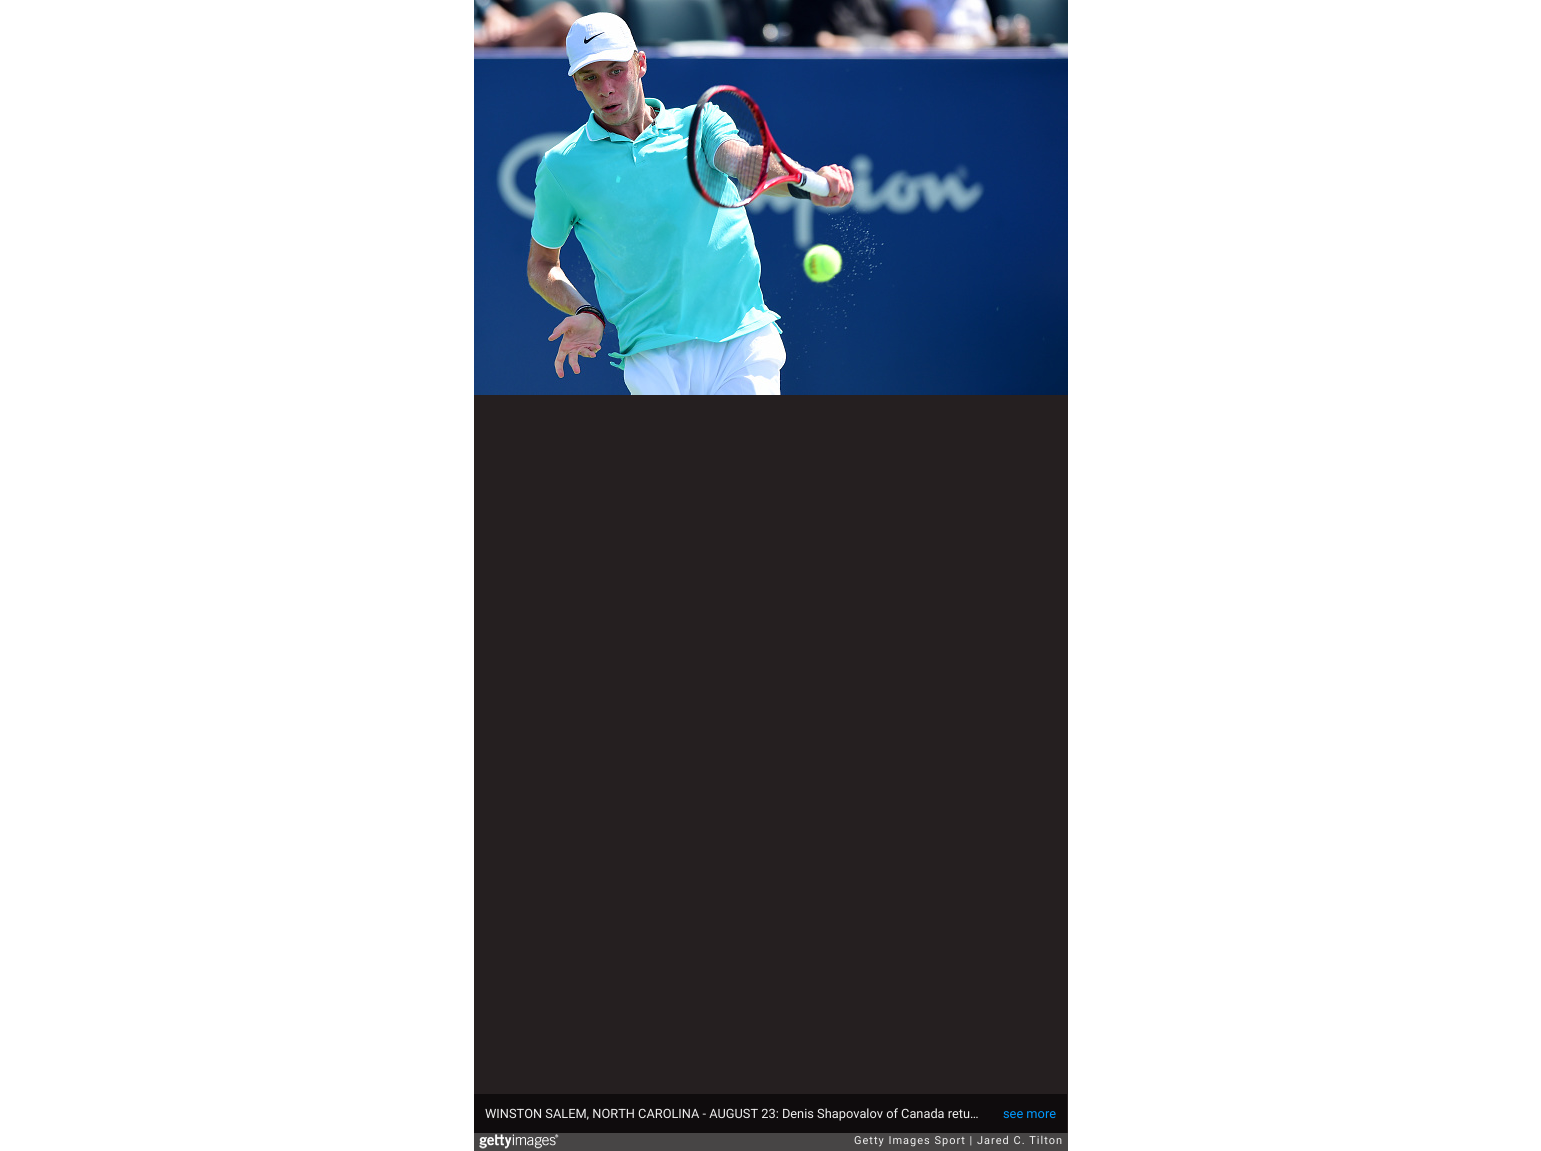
#include <cairo.h>
#include <math.h>
#include <stddef.h>


static void ink(cairo_t *ctx, unsigned color) {
    cairo_set_source_rgb(ctx, (color >> 16) / 255.0, (color >> 8 & 255) / 255.0, (color & 255) / 255.0);
}

static void write_spaced(cairo_t *ctx, double x, double y, const char *s, double letter, double word) {
    cairo_move_to(ctx, x, y);
    while (*s) {
        char ch[5] = {0};
        int n = 0;
        do ch[n++] = *s++; while ((*s & 0xC0) == 0x80);
        cairo_show_text(ctx, ch);
        cairo_rel_move_to(ctx, letter + word * (*ch == ' '), 0);
    }
}

static void paste(cairo_t *ctx, const char *path, double x, double y, double w, double h) {
    cairo_surface_t *image = cairo_image_surface_create_from_png(path);
    cairo_save(ctx);
    cairo_set_source_surface(ctx, image, x, y);
    cairo_rectangle(ctx, x, y, w, h);
    cairo_fill(ctx);
    cairo_restore(ctx);
    cairo_surface_destroy(image);
}

int main(void) {
    cairo_surface_t *surface = cairo_image_surface_create(CAIRO_FORMAT_RGB24, 1541, 1151);
    cairo_t *ctx = cairo_create(surface);
    cairo_font_options_t *options = cairo_font_options_create();
    cairo_font_options_set_hint_metrics(options, CAIRO_HINT_METRICS_OFF);
    cairo_font_options_set_hint_style(options, CAIRO_HINT_STYLE_NONE);
    cairo_set_font_options(ctx, options);
    cairo_set_miter_limit(ctx, 4);
    ink(ctx, 0xFFFFFF);
    cairo_paint(ctx);
    ink(ctx, 0x251F20);
    cairo_rectangle(ctx, 474, 395, 594, 738);
    cairo_fill(ctx);
    paste(ctx, "media/1.png", 474, 0, 594, 395);
    ink(ctx, 0x0F0C0D);
    cairo_rectangle(ctx, 474, 1094, 593, 39);
    cairo_fill(ctx);
    cairo_select_font_face(ctx, "Roboto", CAIRO_FONT_SLANT_NORMAL, CAIRO_FONT_WEIGHT_NORMAL);
    cairo_set_font_size(ctx, 12.8);
    ink(ctx, 0xEEEEEE);
    cairo_move_to(ctx, 485, 1118);
    cairo_show_text(ctx, "WINSTON SALEM, NORTH CAROLINA - AUGUST 23: Denis Shapovalov of Canada retu…");
    ink(ctx, 0x0099FF);
    cairo_move_to(ctx, 1003, 1118);
    cairo_show_text(ctx, "see more");
    ink(ctx, 0x474545);
    cairo_rectangle(ctx, 474, 1133, 594, 18);
    cairo_fill(ctx);
    paste(ctx, "media/2.png", 479, 1134, 80, 15);
    cairo_set_font_size(ctx, 11);
    ink(ctx, 0xEEEEEE);
    write_spaced(ctx, 854, 1144, "Getty Images Sport | Jared C. Tilton", 1, 0);
    cairo_surface_write_to_png(surface, "image.png");
    cairo_font_options_destroy(options);
    cairo_destroy(ctx);
    cairo_surface_destroy(surface);
    return 0;
}
